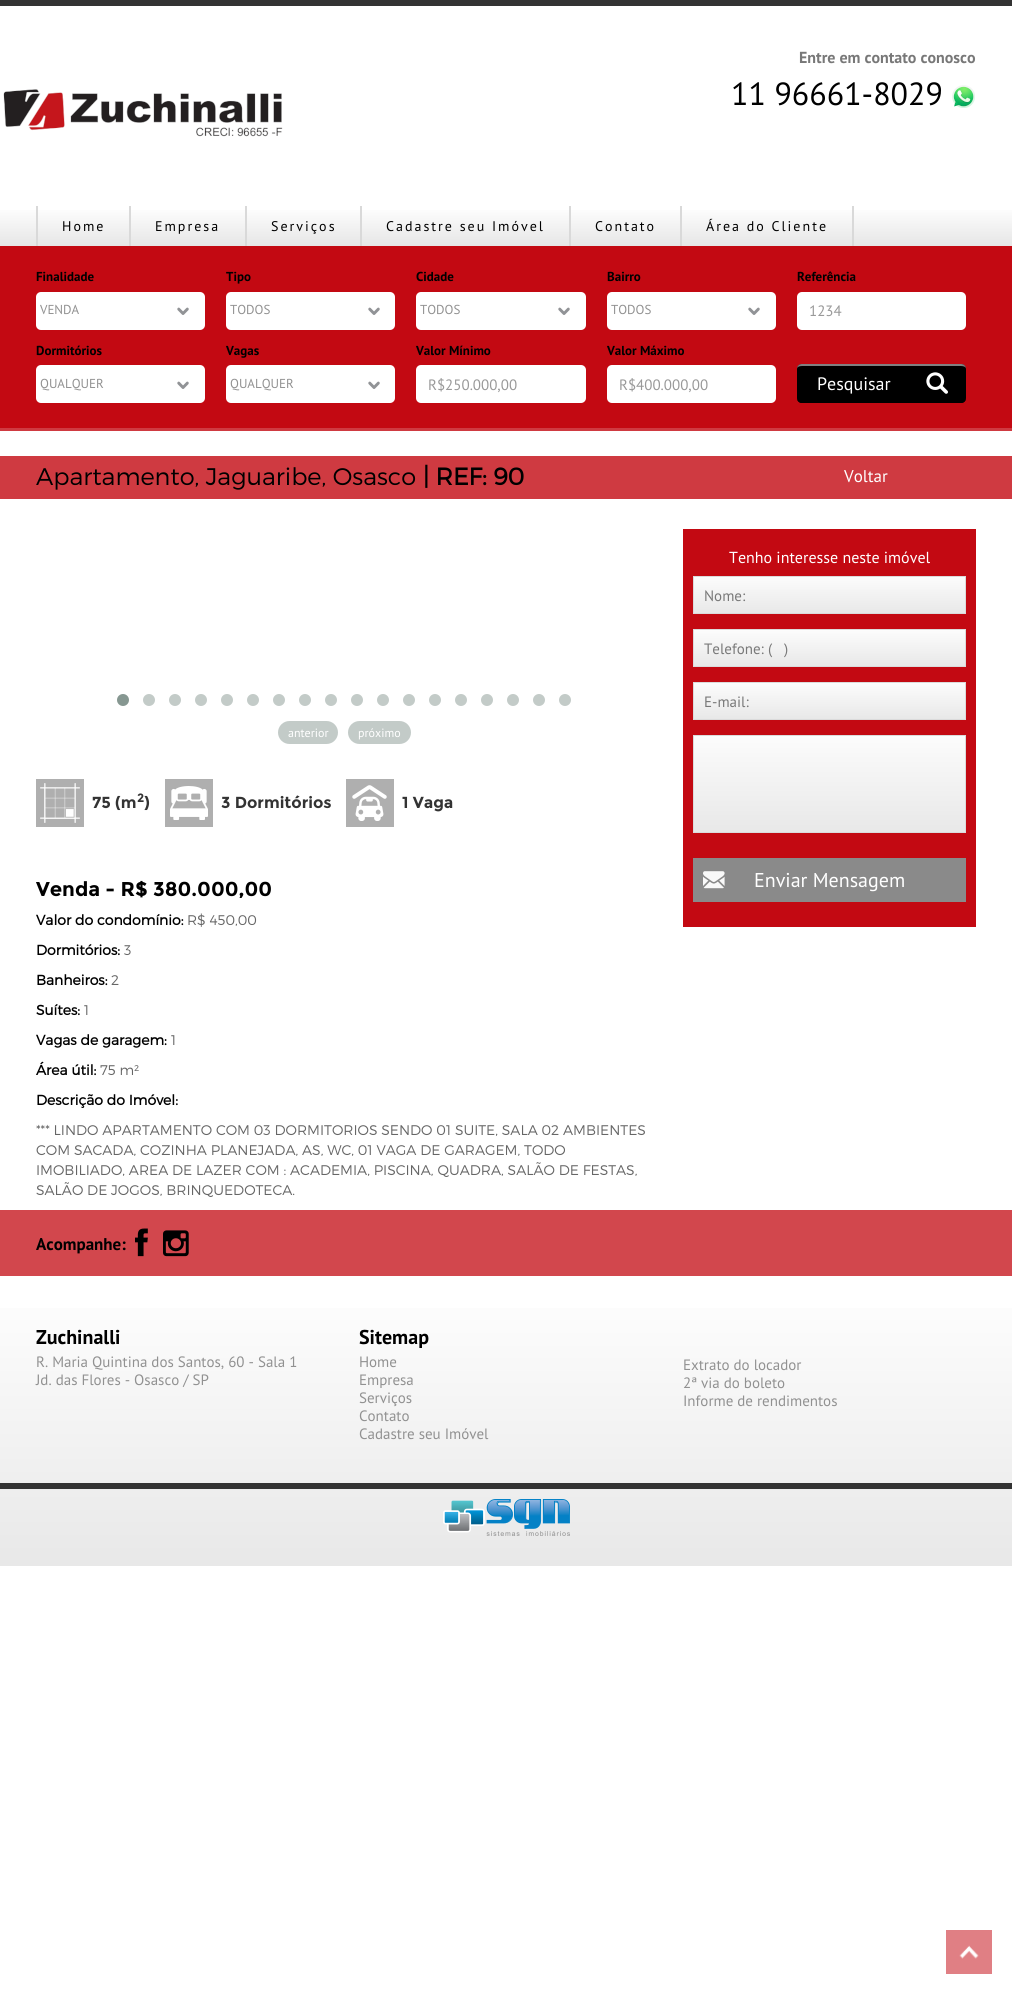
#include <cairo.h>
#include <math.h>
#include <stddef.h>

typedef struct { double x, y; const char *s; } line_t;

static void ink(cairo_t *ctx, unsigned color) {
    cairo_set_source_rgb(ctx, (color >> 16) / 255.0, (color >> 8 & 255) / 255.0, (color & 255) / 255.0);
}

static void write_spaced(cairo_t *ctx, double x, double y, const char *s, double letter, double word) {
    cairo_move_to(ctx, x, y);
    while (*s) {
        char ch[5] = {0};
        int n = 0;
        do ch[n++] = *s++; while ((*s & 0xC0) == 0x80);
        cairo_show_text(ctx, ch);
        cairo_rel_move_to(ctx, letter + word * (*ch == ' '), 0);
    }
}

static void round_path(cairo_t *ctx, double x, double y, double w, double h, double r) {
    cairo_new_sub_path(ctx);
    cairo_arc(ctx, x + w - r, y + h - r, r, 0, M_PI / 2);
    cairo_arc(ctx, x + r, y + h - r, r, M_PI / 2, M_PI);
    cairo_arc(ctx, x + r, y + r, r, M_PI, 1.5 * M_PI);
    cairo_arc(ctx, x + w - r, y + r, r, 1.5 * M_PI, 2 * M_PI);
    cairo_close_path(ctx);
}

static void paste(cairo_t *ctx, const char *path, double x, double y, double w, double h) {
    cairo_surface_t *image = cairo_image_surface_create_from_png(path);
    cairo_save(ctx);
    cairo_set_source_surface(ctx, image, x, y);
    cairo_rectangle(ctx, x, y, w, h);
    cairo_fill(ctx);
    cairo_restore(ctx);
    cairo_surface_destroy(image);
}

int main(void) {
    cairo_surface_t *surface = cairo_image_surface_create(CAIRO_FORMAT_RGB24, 1012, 1994);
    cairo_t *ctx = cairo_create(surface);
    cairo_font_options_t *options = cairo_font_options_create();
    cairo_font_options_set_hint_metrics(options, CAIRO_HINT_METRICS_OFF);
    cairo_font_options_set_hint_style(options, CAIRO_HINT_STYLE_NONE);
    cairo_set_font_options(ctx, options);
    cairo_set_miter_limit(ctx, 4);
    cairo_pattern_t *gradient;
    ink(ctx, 0xFFFFFF);
    cairo_paint(ctx);
    ink(ctx, 0x333333);
    cairo_rectangle(ctx, 0, 0, 1012, 6);
    cairo_fill(ctx);
    cairo_select_font_face(ctx, "PT Sans", CAIRO_FONT_SLANT_NORMAL, CAIRO_FONT_WEIGHT_BOLD);
    cairo_set_font_size(ctx, 16);
    ink(ctx, 0x787878);
    cairo_move_to(ctx, 799, 63);
    cairo_show_text(ctx, "Entre em contato conosco");
    cairo_select_font_face(ctx, "PT Sans", CAIRO_FONT_SLANT_NORMAL, CAIRO_FONT_WEIGHT_NORMAL);
    cairo_set_font_size(ctx, 32);
    ink(ctx, 0x000000);
    cairo_move_to(ctx, 731, 105);
    cairo_show_text(ctx, "11 96661-8029");
    paste(ctx, "media/1.png", 952, 85, 23, 23);
    paste(ctx, "media/2.png", 3, 89, 280, 48);
    gradient = cairo_pattern_create_linear(506, 206, 506, 246);
    cairo_pattern_add_color_stop_rgba(gradient, 0, 1, 1, 1, 1);
    cairo_pattern_add_color_stop_rgba(gradient, 1, 0.902, 0.902, 0.902, 1);
    cairo_set_source(ctx, gradient);
    cairo_pattern_destroy(gradient);
    cairo_rectangle(ctx, 0, 210, 1012, 36);
    cairo_fill(ctx);
    ink(ctx, 0xD9D9D9);
    cairo_rectangle(ctx, 129, 206, 2, 40);
    cairo_fill(ctx);
    cairo_rectangle(ctx, 36, 206, 2, 40);
    cairo_fill(ctx);
    cairo_set_font_size(ctx, 14);
    ink(ctx, 0x000000);
    write_spaced(ctx, 62, 231, "Home", 2, 0);
    ink(ctx, 0xD9D9D9);
    cairo_rectangle(ctx, 245, 206, 2, 40);
    cairo_fill(ctx);
    ink(ctx, 0x000000);
    write_spaced(ctx, 155, 231, "Empresa", 2, 0);
    ink(ctx, 0xD9D9D9);
    cairo_rectangle(ctx, 360, 206, 2, 40);
    cairo_fill(ctx);
    ink(ctx, 0x000000);
    write_spaced(ctx, 271, 231, "Serviços", 2, 0);
    ink(ctx, 0xD9D9D9);
    cairo_rectangle(ctx, 569, 206, 2, 40);
    cairo_fill(ctx);
    ink(ctx, 0x000000);
    write_spaced(ctx, 386, 231, "Cadastre seu Imóvel", 2, 0);
    ink(ctx, 0xD9D9D9);
    cairo_rectangle(ctx, 680, 206, 2, 40);
    cairo_fill(ctx);
    ink(ctx, 0x000000);
    write_spaced(ctx, 595, 231, "Contato", 2, 0);
    ink(ctx, 0xD9D9D9);
    cairo_rectangle(ctx, 852, 206, 2, 40);
    cairo_fill(ctx);
    ink(ctx, 0x000000);
    write_spaced(ctx, 706, 231, "Área do Cliente", 2, 0);
    ink(ctx, 0xC30912);
    cairo_rectangle(ctx, 0, 246, 1012, 182);
    cairo_fill(ctx);
    ink(ctx, 0xCF3A41);
    cairo_rectangle(ctx, 0, 428, 1012, 3);
    cairo_fill(ctx);
    cairo_select_font_face(ctx, "PT Sans", CAIRO_FONT_SLANT_NORMAL, CAIRO_FONT_WEIGHT_BOLD);
    cairo_set_font_size(ctx, 13);
    ink(ctx, 0x000000);
    cairo_move_to(ctx, 36, 281);
    cairo_show_text(ctx, "Finalidade");
    ink(ctx, 0xFFFFFF);
    round_path(ctx, 36, 292, 169, 38, 5);
    cairo_fill(ctx);
    paste(ctx, "media/3.png", 177, 307, 12, 8);
    cairo_select_font_face(ctx, "PT Sans", CAIRO_FONT_SLANT_NORMAL, CAIRO_FONT_WEIGHT_NORMAL);
    ink(ctx, 0x919191);
    cairo_move_to(ctx, 40, 314);
    cairo_show_text(ctx, "VENDA");
    cairo_select_font_face(ctx, "PT Sans", CAIRO_FONT_SLANT_NORMAL, CAIRO_FONT_WEIGHT_BOLD);
    ink(ctx, 0x000000);
    cairo_move_to(ctx, 226, 281);
    cairo_show_text(ctx, "Tipo");
    ink(ctx, 0xFFFFFF);
    round_path(ctx, 226, 292, 169, 38, 5);
    cairo_fill(ctx);
    paste(ctx, "media/3.png", 368, 307, 12, 8);
    cairo_select_font_face(ctx, "PT Sans", CAIRO_FONT_SLANT_NORMAL, CAIRO_FONT_WEIGHT_NORMAL);
    ink(ctx, 0x919191);
    cairo_move_to(ctx, 230, 314);
    cairo_show_text(ctx, "TODOS");
    cairo_select_font_face(ctx, "PT Sans", CAIRO_FONT_SLANT_NORMAL, CAIRO_FONT_WEIGHT_BOLD);
    ink(ctx, 0x000000);
    cairo_move_to(ctx, 416, 281);
    cairo_show_text(ctx, "Cidade");
    ink(ctx, 0xFFFFFF);
    round_path(ctx, 416, 292, 170, 38, 5);
    cairo_fill(ctx);
    paste(ctx, "media/3.png", 558, 307, 12, 8);
    cairo_select_font_face(ctx, "PT Sans", CAIRO_FONT_SLANT_NORMAL, CAIRO_FONT_WEIGHT_NORMAL);
    ink(ctx, 0x919191);
    cairo_move_to(ctx, 420, 314);
    cairo_show_text(ctx, "TODOS");
    cairo_select_font_face(ctx, "PT Sans", CAIRO_FONT_SLANT_NORMAL, CAIRO_FONT_WEIGHT_BOLD);
    ink(ctx, 0x000000);
    cairo_move_to(ctx, 607, 281);
    cairo_show_text(ctx, "Bairro");
    ink(ctx, 0xFFFFFF);
    round_path(ctx, 607, 292, 169, 38, 5);
    cairo_fill(ctx);
    paste(ctx, "media/3.png", 748, 307, 12, 8);
    cairo_select_font_face(ctx, "PT Sans", CAIRO_FONT_SLANT_NORMAL, CAIRO_FONT_WEIGHT_NORMAL);
    ink(ctx, 0x919191);
    cairo_move_to(ctx, 611, 314);
    cairo_show_text(ctx, "TODOS");
    cairo_select_font_face(ctx, "PT Sans", CAIRO_FONT_SLANT_NORMAL, CAIRO_FONT_WEIGHT_BOLD);
    ink(ctx, 0x000000);
    cairo_move_to(ctx, 797, 281);
    cairo_show_text(ctx, "Referência");
    ink(ctx, 0xFFFFFF);
    round_path(ctx, 797, 292, 169, 38, 5);
    cairo_fill(ctx);
    cairo_select_font_face(ctx, "PT Sans", CAIRO_FONT_SLANT_NORMAL, CAIRO_FONT_WEIGHT_NORMAL);
    cairo_set_font_size(ctx, 15);
    ink(ctx, 0x999999);
    cairo_move_to(ctx, 809, 316);
    cairo_show_text(ctx, "1234");
    cairo_select_font_face(ctx, "PT Sans", CAIRO_FONT_SLANT_NORMAL, CAIRO_FONT_WEIGHT_BOLD);
    cairo_set_font_size(ctx, 13);
    ink(ctx, 0x000000);
    cairo_move_to(ctx, 36, 355);
    cairo_show_text(ctx, "Dormitórios");
    ink(ctx, 0xFFFFFF);
    round_path(ctx, 36, 365, 169, 38, 5);
    cairo_fill(ctx);
    paste(ctx, "media/3.png", 177, 381, 12, 8);
    cairo_select_font_face(ctx, "PT Sans", CAIRO_FONT_SLANT_NORMAL, CAIRO_FONT_WEIGHT_NORMAL);
    ink(ctx, 0x919191);
    cairo_move_to(ctx, 40, 388);
    cairo_show_text(ctx, "QUALQUER");
    cairo_select_font_face(ctx, "PT Sans", CAIRO_FONT_SLANT_NORMAL, CAIRO_FONT_WEIGHT_BOLD);
    ink(ctx, 0x000000);
    cairo_move_to(ctx, 226, 355);
    cairo_show_text(ctx, "Vagas");
    ink(ctx, 0xFFFFFF);
    round_path(ctx, 226, 365, 169, 38, 5);
    cairo_fill(ctx);
    paste(ctx, "media/3.png", 368, 381, 12, 8);
    cairo_select_font_face(ctx, "PT Sans", CAIRO_FONT_SLANT_NORMAL, CAIRO_FONT_WEIGHT_NORMAL);
    ink(ctx, 0x919191);
    cairo_move_to(ctx, 230, 388);
    cairo_show_text(ctx, "QUALQUER");
    cairo_select_font_face(ctx, "PT Sans", CAIRO_FONT_SLANT_NORMAL, CAIRO_FONT_WEIGHT_BOLD);
    ink(ctx, 0x000000);
    cairo_move_to(ctx, 416, 355);
    cairo_show_text(ctx, "Valor Mínimo");
    ink(ctx, 0xFFFFFF);
    round_path(ctx, 416, 365, 170, 38, 5);
    cairo_fill(ctx);
    cairo_select_font_face(ctx, "PT Sans", CAIRO_FONT_SLANT_NORMAL, CAIRO_FONT_WEIGHT_NORMAL);
    cairo_set_font_size(ctx, 15);
    ink(ctx, 0x999999);
    cairo_move_to(ctx, 428, 390);
    cairo_show_text(ctx, "R$250.000,00");
    cairo_select_font_face(ctx, "PT Sans", CAIRO_FONT_SLANT_NORMAL, CAIRO_FONT_WEIGHT_BOLD);
    cairo_set_font_size(ctx, 13);
    ink(ctx, 0x000000);
    cairo_move_to(ctx, 607, 355);
    cairo_show_text(ctx, "Valor Máximo");
    ink(ctx, 0xFFFFFF);
    round_path(ctx, 607, 365, 169, 38, 5);
    cairo_fill(ctx);
    cairo_select_font_face(ctx, "PT Sans", CAIRO_FONT_SLANT_NORMAL, CAIRO_FONT_WEIGHT_NORMAL);
    cairo_set_font_size(ctx, 15);
    ink(ctx, 0x999999);
    cairo_move_to(ctx, 619, 390);
    cairo_show_text(ctx, "R$400.000,00");
    ink(ctx, 0x000000);
    round_path(ctx, 797, 364, 169, 39, 5);
    cairo_fill(ctx);
    paste(ctx, "media/4.png", 926, 372, 22, 22);
    ink(ctx, 0x808080);
    cairo_new_path(ctx);
    cairo_move_to(ctx, 802, 364);
    cairo_curve_to(ctx, 799, 364, 797, 366, 797, 369);
    cairo_curve_to(ctx, 797, 367, 799, 366, 802, 366);
    cairo_line_to(ctx, 961, 366);
    cairo_curve_to(ctx, 964, 366, 966, 367, 966, 369);
    cairo_curve_to(ctx, 966, 366, 964, 364, 961, 364);
    cairo_close_path(ctx);
    cairo_fill(ctx);
    ink(ctx, 0x000000);
    cairo_new_path(ctx);
    cairo_move_to(ctx, 961, 403);
    cairo_curve_to(ctx, 964, 403, 966, 401, 966, 398);
    cairo_curve_to(ctx, 966, 400, 964, 401, 961, 401);
    cairo_line_to(ctx, 802, 401);
    cairo_curve_to(ctx, 799, 401, 797, 400, 797, 398);
    cairo_curve_to(ctx, 797, 401, 799, 403, 802, 403);
    cairo_close_path(ctx);
    cairo_fill(ctx);
    cairo_set_font_size(ctx, 18);
    ink(ctx, 0xFFFFFF);
    cairo_move_to(ctx, 817, 390);
    cairo_show_text(ctx, "Pesquisar");
    ink(ctx, 0xCF3A41);
    cairo_rectangle(ctx, 0, 456, 1012, 43);
    cairo_fill(ctx);
    cairo_select_font_face(ctx, "Montserrat Light", CAIRO_FONT_SLANT_NORMAL, CAIRO_FONT_WEIGHT_NORMAL);
    cairo_set_font_size(ctx, 24);
    ink(ctx, 0x000000);
    cairo_move_to(ctx, 36, 485);
    cairo_show_text(ctx, "Apartamento, Jaguaribe, Osasco");
    cairo_select_font_face(ctx, "Montserrat", CAIRO_FONT_SLANT_NORMAL, CAIRO_FONT_WEIGHT_BOLD);
    cairo_move_to(ctx, 423, 485);
    cairo_show_text(ctx, "| REF: 90");
    cairo_select_font_face(ctx, "PT Sans", CAIRO_FONT_SLANT_NORMAL, CAIRO_FONT_WEIGHT_NORMAL);
    cairo_set_font_size(ctx, 17);
    ink(ctx, 0xFFFFFF);
    cairo_move_to(ctx, 844, 482);
    cairo_show_text(ctx, "Voltar");
    ink(ctx, 0x869791);
    cairo_new_path(ctx);
    cairo_arc(ctx, 123, 700, 6, 0, 2 * M_PI);
    cairo_fill(ctx);
    ink(ctx, 0xC3CBC8);
    cairo_arc(ctx, 149, 700, 6, 0, 2 * M_PI);
    cairo_fill(ctx);
    cairo_arc(ctx, 175, 700, 6, 0, 2 * M_PI);
    cairo_fill(ctx);
    cairo_arc(ctx, 201, 700, 6, 0, 2 * M_PI);
    cairo_fill(ctx);
    cairo_arc(ctx, 227, 700, 6, 0, 2 * M_PI);
    cairo_fill(ctx);
    cairo_arc(ctx, 253, 700, 6, 0, 2 * M_PI);
    cairo_fill(ctx);
    cairo_arc(ctx, 279, 700, 6, 0, 2 * M_PI);
    cairo_fill(ctx);
    cairo_arc(ctx, 305, 700, 6, 0, 2 * M_PI);
    cairo_fill(ctx);
    cairo_arc(ctx, 331, 700, 6, 0, 2 * M_PI);
    cairo_fill(ctx);
    cairo_arc(ctx, 357, 700, 6, 0, 2 * M_PI);
    cairo_fill(ctx);
    cairo_arc(ctx, 383, 700, 6, 0, 2 * M_PI);
    cairo_fill(ctx);
    cairo_arc(ctx, 409, 700, 6, 0, 2 * M_PI);
    cairo_fill(ctx);
    cairo_arc(ctx, 435, 700, 6, 0, 2 * M_PI);
    cairo_fill(ctx);
    cairo_arc(ctx, 461, 700, 6, 0, 2 * M_PI);
    cairo_fill(ctx);
    cairo_arc(ctx, 487, 700, 6, 0, 2 * M_PI);
    cairo_fill(ctx);
    cairo_arc(ctx, 513, 700, 6, 0, 2 * M_PI);
    cairo_fill(ctx);
    cairo_arc(ctx, 539, 700, 6, 0, 2 * M_PI);
    cairo_fill(ctx);
    cairo_arc(ctx, 565, 700, 6, 0, 2 * M_PI);
    cairo_fill(ctx);
    round_path(ctx, 278, 721, 60, 23, 11.5);
    cairo_fill(ctx);
    cairo_set_font_size(ctx, 12);
    ink(ctx, 0xFFFFFF);
    cairo_move_to(ctx, 288, 737);
    cairo_show_text(ctx, "anterior");
    ink(ctx, 0xC3CBC8);
    round_path(ctx, 348, 721, 63, 23, 11.5);
    cairo_fill(ctx);
    ink(ctx, 0xFFFFFF);
    cairo_move_to(ctx, 358, 737);
    cairo_show_text(ctx, "próximo");
    paste(ctx, "media/5.png", 36, 779, 48, 48);
    cairo_select_font_face(ctx, "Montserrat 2", CAIRO_FONT_SLANT_NORMAL, CAIRO_FONT_WEIGHT_BOLD);
    cairo_set_font_size(ctx, 16);
    ink(ctx, 0x333333);
    cairo_move_to(ctx, 92, 808);
    cairo_show_text(ctx, "75 (m");
    cairo_set_font_size(ctx, 12);
    cairo_move_to(ctx, 137, 802);
    cairo_show_text(ctx, "2");
    cairo_set_font_size(ctx, 16);
    cairo_move_to(ctx, 144, 808);
    cairo_show_text(ctx, ")");
    paste(ctx, "media/6.png", 165, 779, 48, 48);
    cairo_move_to(ctx, 221, 808);
    cairo_show_text(ctx, "3 Dormitórios");
    paste(ctx, "media/7.png", 346, 779, 48, 48);
    cairo_move_to(ctx, 402, 808);
    cairo_show_text(ctx, "1 Vaga");
    cairo_set_font_size(ctx, 20);
    ink(ctx, 0x000000);
    cairo_move_to(ctx, 36, 896);
    cairo_show_text(ctx, "Venda - R$ 380.000,00");
    cairo_select_font_face(ctx, "Montserrat", CAIRO_FONT_SLANT_NORMAL, CAIRO_FONT_WEIGHT_BOLD);
    cairo_set_font_size(ctx, 14);
    cairo_move_to(ctx, 36, 925);
    cairo_show_text(ctx, "Valor do condomínio:");
    cairo_select_font_face(ctx, "Montserrat Light", CAIRO_FONT_SLANT_NORMAL, CAIRO_FONT_WEIGHT_NORMAL);
    ink(ctx, 0x666666);
    cairo_move_to(ctx, 187, 925);
    cairo_show_text(ctx, "R$ 450,00");
    cairo_select_font_face(ctx, "Montserrat", CAIRO_FONT_SLANT_NORMAL, CAIRO_FONT_WEIGHT_BOLD);
    ink(ctx, 0x000000);
    cairo_move_to(ctx, 36, 955);
    cairo_show_text(ctx, "Dormitórios:");
    cairo_select_font_face(ctx, "Montserrat Light", CAIRO_FONT_SLANT_NORMAL, CAIRO_FONT_WEIGHT_NORMAL);
    ink(ctx, 0x666666);
    cairo_move_to(ctx, 124, 955);
    cairo_show_text(ctx, "3");
    cairo_select_font_face(ctx, "Montserrat", CAIRO_FONT_SLANT_NORMAL, CAIRO_FONT_WEIGHT_BOLD);
    ink(ctx, 0x000000);
    cairo_move_to(ctx, 36, 985);
    cairo_show_text(ctx, "Banheiros:");
    cairo_select_font_face(ctx, "Montserrat Light", CAIRO_FONT_SLANT_NORMAL, CAIRO_FONT_WEIGHT_NORMAL);
    ink(ctx, 0x666666);
    cairo_move_to(ctx, 111, 985);
    cairo_show_text(ctx, "2");
    cairo_select_font_face(ctx, "Montserrat", CAIRO_FONT_SLANT_NORMAL, CAIRO_FONT_WEIGHT_BOLD);
    ink(ctx, 0x000000);
    cairo_move_to(ctx, 36, 1015);
    cairo_show_text(ctx, "Suítes:");
    cairo_select_font_face(ctx, "Montserrat Light", CAIRO_FONT_SLANT_NORMAL, CAIRO_FONT_WEIGHT_NORMAL);
    ink(ctx, 0x666666);
    cairo_move_to(ctx, 84, 1015);
    cairo_show_text(ctx, "1");
    cairo_select_font_face(ctx, "Montserrat", CAIRO_FONT_SLANT_NORMAL, CAIRO_FONT_WEIGHT_BOLD);
    ink(ctx, 0x000000);
    cairo_move_to(ctx, 36, 1045);
    cairo_show_text(ctx, "Vagas de garagem:");
    cairo_select_font_face(ctx, "Montserrat Light", CAIRO_FONT_SLANT_NORMAL, CAIRO_FONT_WEIGHT_NORMAL);
    ink(ctx, 0x666666);
    cairo_move_to(ctx, 171, 1045);
    cairo_show_text(ctx, "1");
    cairo_select_font_face(ctx, "Montserrat", CAIRO_FONT_SLANT_NORMAL, CAIRO_FONT_WEIGHT_BOLD);
    ink(ctx, 0x000000);
    cairo_move_to(ctx, 36, 1075);
    cairo_show_text(ctx, "Área útil:");
    cairo_select_font_face(ctx, "Montserrat Light", CAIRO_FONT_SLANT_NORMAL, CAIRO_FONT_WEIGHT_NORMAL);
    ink(ctx, 0x666666);
    cairo_move_to(ctx, 100, 1075);
    cairo_show_text(ctx, "75 m²");
    cairo_select_font_face(ctx, "Montserrat", CAIRO_FONT_SLANT_NORMAL, CAIRO_FONT_WEIGHT_BOLD);
    ink(ctx, 0x000000);
    cairo_move_to(ctx, 36, 1105);
    cairo_show_text(ctx, "Descrição do Imóvel:");
    cairo_select_font_face(ctx, "Montserrat Light", CAIRO_FONT_SLANT_NORMAL, CAIRO_FONT_WEIGHT_NORMAL);
    ink(ctx, 0x666666);
    {
        static const line_t items[] = {
            {36, 1135, "*** LINDO APARTAMENTO COM 03 DORMITORIOS SENDO 01 SUITE, SALA 02 AMBIENTES"},
            {36, 1155, "COM SACADA, COZINHA PLANEJADA, AS, WC, 01 VAGA DE GARAGEM, TODO"},
            {36, 1175, "IMOBILIADO, AREA DE LAZER COM : ACADEMIA, PISCINA, QUADRA, SALÃO DE FESTAS,"},
            {36, 1195, "SALÃO DE JOGOS, BRINQUEDOTECA."},
        };
        for (size_t i = 0; i < sizeof items / sizeof *items; i++) {
            cairo_move_to(ctx, items[i].x, items[i].y);
            cairo_show_text(ctx, items[i].s);
        }
    }
    ink(ctx, 0xC30912);
    cairo_rectangle(ctx, 683, 529, 293, 398);
    cairo_fill(ctx);
    cairo_select_font_face(ctx, "PT Sans", CAIRO_FONT_SLANT_NORMAL, CAIRO_FONT_WEIGHT_NORMAL);
    cairo_set_font_size(ctx, 16);
    ink(ctx, 0xFFFFFF);
    cairo_move_to(ctx, 729, 563);
    cairo_show_text(ctx, "Tenho interesse neste imóvel");
    gradient = cairo_pattern_create_linear(830, 577, 830, 613);
    cairo_pattern_add_color_stop_rgba(gradient, 0, 0.988, 0.988, 0.988, 1);
    cairo_pattern_add_color_stop_rgba(gradient, 1, 0.91, 0.91, 0.91, 1);
    cairo_set_source(ctx, gradient);
    cairo_pattern_destroy(gradient);
    cairo_rectangle(ctx, 694, 577, 271, 36);
    cairo_fill(ctx);
    cairo_rectangle(ctx, 693.5, 576.5, 272, 37);
    ink(ctx, 0xDBDBDB);
    cairo_set_line_width(ctx, 1);
    cairo_stroke(ctx);
    cairo_set_font_size(ctx, 15);
    ink(ctx, 0x787878);
    cairo_move_to(ctx, 704, 601);
    cairo_show_text(ctx, "Nome:");
    gradient = cairo_pattern_create_linear(830, 630, 830, 666);
    cairo_pattern_add_color_stop_rgba(gradient, 0, 0.988, 0.988, 0.988, 1);
    cairo_pattern_add_color_stop_rgba(gradient, 1, 0.91, 0.91, 0.91, 1);
    cairo_set_source(ctx, gradient);
    cairo_pattern_destroy(gradient);
    cairo_rectangle(ctx, 694, 630, 271, 36);
    cairo_fill(ctx);
    cairo_rectangle(ctx, 693.5, 629.5, 272, 37);
    ink(ctx, 0xDBDBDB);
    cairo_stroke(ctx);
    ink(ctx, 0x787878);
    cairo_move_to(ctx, 704, 654);
    cairo_show_text(ctx, "Telefone: (   )");
    gradient = cairo_pattern_create_linear(830, 683, 830, 719);
    cairo_pattern_add_color_stop_rgba(gradient, 0, 0.988, 0.988, 0.988, 1);
    cairo_pattern_add_color_stop_rgba(gradient, 1, 0.91, 0.91, 0.91, 1);
    cairo_set_source(ctx, gradient);
    cairo_pattern_destroy(gradient);
    cairo_rectangle(ctx, 694, 683, 271, 36);
    cairo_fill(ctx);
    cairo_rectangle(ctx, 693.5, 682.5, 272, 37);
    ink(ctx, 0xDBDBDB);
    cairo_stroke(ctx);
    ink(ctx, 0x787878);
    cairo_move_to(ctx, 704, 707);
    cairo_show_text(ctx, "E-mail:");
    gradient = cairo_pattern_create_linear(830, 736, 830, 832);
    cairo_pattern_add_color_stop_rgba(gradient, 0, 0.988, 0.988, 0.988, 1);
    cairo_pattern_add_color_stop_rgba(gradient, 1, 0.91, 0.91, 0.91, 1);
    cairo_set_source(ctx, gradient);
    cairo_pattern_destroy(gradient);
    cairo_rectangle(ctx, 694, 736, 271, 96);
    cairo_fill(ctx);
    cairo_rectangle(ctx, 693.5, 735.5, 272, 97);
    ink(ctx, 0xDBDBDB);
    cairo_stroke(ctx);
    ink(ctx, 0x8A8A8A);
    cairo_rectangle(ctx, 693, 858, 273, 44);
    cairo_fill(ctx);
    paste(ctx, "media/8.png", 703, 871, 22, 18);
    cairo_set_font_size(ctx, 20);
    ink(ctx, 0xFFFFFF);
    cairo_move_to(ctx, 754, 887);
    cairo_show_text(ctx, "Enviar Mensagem");
    ink(ctx, 0xD2474D);
    cairo_rectangle(ctx, 0, 1210, 1012, 66);
    cairo_fill(ctx);
    cairo_select_font_face(ctx, "PT Sans", CAIRO_FONT_SLANT_NORMAL, CAIRO_FONT_WEIGHT_BOLD);
    cairo_set_font_size(ctx, 17);
    ink(ctx, 0x000000);
    cairo_move_to(ctx, 36, 1250);
    cairo_show_text(ctx, "Acompanhe:");
    paste(ctx, "media/9.png", 135, 1228, 13, 29);
    paste(ctx, "media/10.png", 163, 1230, 26, 27);
    gradient = cairo_pattern_create_linear(506, 1276, 506, 1566);
    cairo_pattern_add_color_stop_rgba(gradient, 0, 1, 1, 1, 1);
    cairo_pattern_add_color_stop_rgba(gradient, 1, 0.91, 0.91, 0.91, 1);
    cairo_set_source(ctx, gradient);
    cairo_pattern_destroy(gradient);
    cairo_rectangle(ctx, 0, 1308, 1012, 258);
    cairo_fill(ctx);
    cairo_set_font_size(ctx, 20);
    ink(ctx, 0x000000);
    cairo_move_to(ctx, 36, 1344);
    cairo_show_text(ctx, "Zuchinalli");
    cairo_select_font_face(ctx, "PT Sans", CAIRO_FONT_SLANT_NORMAL, CAIRO_FONT_WEIGHT_NORMAL);
    cairo_set_font_size(ctx, 15);
    ink(ctx, 0x919191);
    cairo_move_to(ctx, 36, 1367);
    cairo_show_text(ctx, "R. Maria Quintina dos Santos, 60 - Sala 1");
    cairo_move_to(ctx, 36, 1385);
    cairo_show_text(ctx, "Jd. das Flores - Osasco / SP");
    cairo_select_font_face(ctx, "PT Sans", CAIRO_FONT_SLANT_NORMAL, CAIRO_FONT_WEIGHT_BOLD);
    cairo_set_font_size(ctx, 20);
    ink(ctx, 0x000000);
    cairo_move_to(ctx, 359, 1344);
    cairo_show_text(ctx, "Sitemap");
    cairo_select_font_face(ctx, "PT Sans", CAIRO_FONT_SLANT_NORMAL, CAIRO_FONT_WEIGHT_NORMAL);
    cairo_set_font_size(ctx, 15);
    ink(ctx, 0x919191);
    {
        static const line_t items[] = {
            {359, 1367, "Home"},
            {359, 1385, "Empresa"},
            {359, 1403, "Serviços"},
            {359, 1421, "Contato"},
            {359, 1439, "Cadastre seu Imóvel"},
            {683, 1370, "Extrato do locador"},
            {683, 1388, "2ª via do boleto"},
            {683, 1406, "Informe de rendimentos"},
        };
        for (size_t i = 0; i < sizeof items / sizeof *items; i++) {
            cairo_move_to(ctx, items[i].x, items[i].y);
            cairo_show_text(ctx, items[i].s);
        }
    }
    ink(ctx, 0x333333);
    cairo_rectangle(ctx, 0, 1483, 1012, 6);
    cairo_fill(ctx);
    paste(ctx, "media/11.png", 443, 1499, 127, 37);
    ink(ctx, 0xE07F84);
    cairo_rectangle(ctx, 946, 1930, 46, 44);
    cairo_fill(ctx);
    paste(ctx, "media/12.png", 959, 1945, 20, 14);
    cairo_surface_write_to_png(surface, "image.png");
    cairo_font_options_destroy(options);
    cairo_destroy(ctx);
    cairo_surface_destroy(surface);
    return 0;
}
